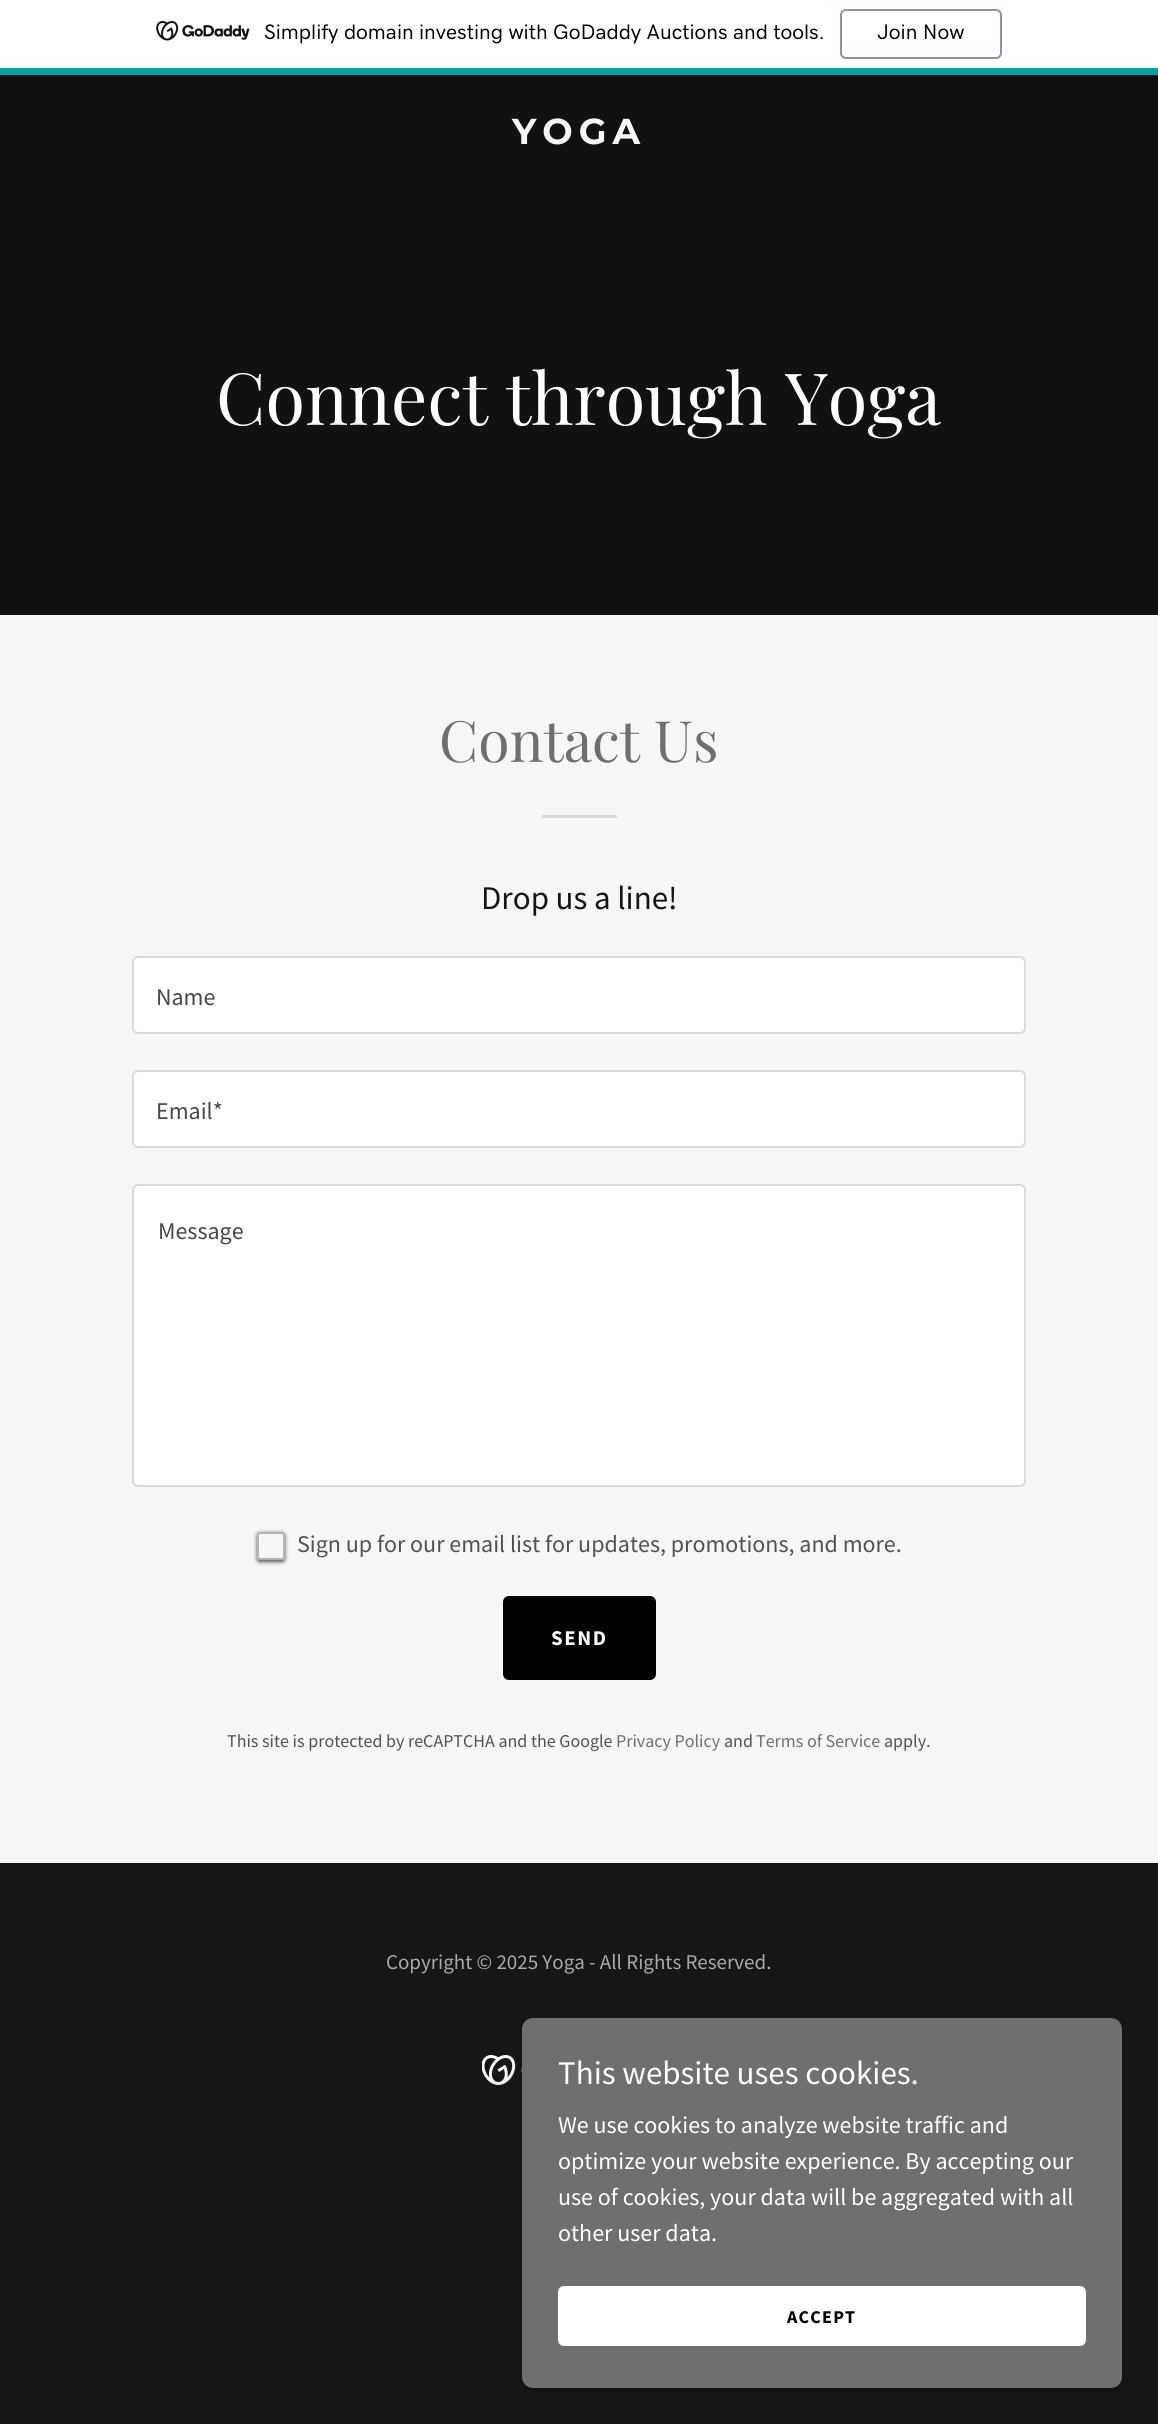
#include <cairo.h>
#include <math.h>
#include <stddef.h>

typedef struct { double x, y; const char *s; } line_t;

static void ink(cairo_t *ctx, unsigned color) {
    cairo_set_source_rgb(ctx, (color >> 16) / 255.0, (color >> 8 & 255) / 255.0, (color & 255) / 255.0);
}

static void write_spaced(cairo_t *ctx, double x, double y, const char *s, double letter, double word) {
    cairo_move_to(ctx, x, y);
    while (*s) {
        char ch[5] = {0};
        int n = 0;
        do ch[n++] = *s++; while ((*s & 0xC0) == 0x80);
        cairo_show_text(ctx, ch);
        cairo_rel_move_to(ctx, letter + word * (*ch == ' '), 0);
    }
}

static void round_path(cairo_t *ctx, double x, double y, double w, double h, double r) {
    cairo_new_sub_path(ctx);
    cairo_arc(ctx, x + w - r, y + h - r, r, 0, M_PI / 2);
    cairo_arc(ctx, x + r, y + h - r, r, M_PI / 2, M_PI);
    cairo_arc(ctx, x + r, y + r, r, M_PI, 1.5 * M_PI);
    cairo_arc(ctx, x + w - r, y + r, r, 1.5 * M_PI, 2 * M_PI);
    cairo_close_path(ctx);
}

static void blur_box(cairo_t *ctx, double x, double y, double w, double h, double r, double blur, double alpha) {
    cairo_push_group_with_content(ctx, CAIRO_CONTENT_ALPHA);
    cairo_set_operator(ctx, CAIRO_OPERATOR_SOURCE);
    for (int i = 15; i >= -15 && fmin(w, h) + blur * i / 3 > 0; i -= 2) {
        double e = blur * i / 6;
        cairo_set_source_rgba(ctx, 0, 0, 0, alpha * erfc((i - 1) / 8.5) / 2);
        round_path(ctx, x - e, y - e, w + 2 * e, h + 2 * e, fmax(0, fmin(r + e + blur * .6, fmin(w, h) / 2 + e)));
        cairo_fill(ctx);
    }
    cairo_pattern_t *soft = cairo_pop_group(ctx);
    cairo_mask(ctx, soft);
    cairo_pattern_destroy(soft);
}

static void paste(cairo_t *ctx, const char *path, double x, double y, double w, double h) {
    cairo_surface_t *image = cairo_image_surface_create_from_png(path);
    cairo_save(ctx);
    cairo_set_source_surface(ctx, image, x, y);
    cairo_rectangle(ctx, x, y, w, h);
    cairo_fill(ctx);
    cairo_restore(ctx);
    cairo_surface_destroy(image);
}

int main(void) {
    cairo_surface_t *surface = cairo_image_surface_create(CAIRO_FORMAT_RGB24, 1158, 2424);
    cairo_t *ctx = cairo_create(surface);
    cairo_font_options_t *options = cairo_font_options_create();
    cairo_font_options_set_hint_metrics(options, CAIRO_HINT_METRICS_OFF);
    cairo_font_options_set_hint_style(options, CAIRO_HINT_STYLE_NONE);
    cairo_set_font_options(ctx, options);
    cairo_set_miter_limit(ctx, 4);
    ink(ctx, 0x161616);
    cairo_paint(ctx);
    ink(ctx, 0xFFFFFF);
    cairo_rectangle(ctx, 0, 0, 1158, 68);
    cairo_fill(ctx);
    ink(ctx, 0x00A4A6);
    cairo_rectangle(ctx, 0, 68, 1158, 7);
    cairo_fill(ctx);
    paste(ctx, "media/1.png", 156, 21, 94, 20);
    cairo_select_font_face(ctx, "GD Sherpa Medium", CAIRO_FONT_SLANT_NORMAL, CAIRO_FONT_WEIGHT_NORMAL);
    cairo_set_font_size(ctx, 21);
    ink(ctx, 0x000000);
    cairo_move_to(ctx, 264, 39);
    cairo_show_text(ctx, "Simplify domain investing with GoDaddy Auctions and tools.");
    round_path(ctx, 841, 10, 160, 48, 5);
    ink(ctx, 0x8995A9);
    cairo_stroke(ctx);
    ink(ctx, 0x000000);
    cairo_move_to(ctx, 877, 39);
    cairo_show_text(ctx, "Join Now");
    ink(ctx, 0x111111);
    cairo_rectangle(ctx, 0, 75, 1158, 540);
    cairo_fill(ctx);
    cairo_select_font_face(ctx, "Montserrat", CAIRO_FONT_SLANT_NORMAL, CAIRO_FONT_WEIGHT_BOLD);
    cairo_set_font_size(ctx, 36);
    ink(ctx, 0xF7F7F7);
    write_spaced(ctx, 512, 144, "YOGA", 6, 0);
    cairo_select_font_face(ctx, "Playfair Display", CAIRO_FONT_SLANT_NORMAL, CAIRO_FONT_WEIGHT_NORMAL);
    cairo_set_font_size(ctx, 72);
    ink(ctx, 0xFFFFFF);
    cairo_move_to(ctx, 216, 425);
    cairo_show_text(ctx, "Connect through Yoga");
    ink(ctx, 0xF6F6F6);
    cairo_rectangle(ctx, 0, 615, 1158, 1248);
    cairo_fill(ctx);
    cairo_set_font_size(ctx, 57);
    ink(ctx, 0x6F6F6F);
    cairo_move_to(ctx, 439, 762);
    cairo_show_text(ctx, "Contact Us");
    ink(ctx, 0xDADADA);
    cairo_rectangle(ctx, 542, 815, 75, 3);
    cairo_fill(ctx);
    cairo_select_font_face(ctx, "Source Sans Pro", CAIRO_FONT_SLANT_NORMAL, CAIRO_FONT_WEIGHT_NORMAL);
    cairo_set_font_size(ctx, 33);
    ink(ctx, 0x151515);
    cairo_move_to(ctx, 481, 909);
    cairo_show_text(ctx, "Drop us a line!");
    ink(ctx, 0xFFFFFF);
    round_path(ctx, 133, 957, 892, 76, 5);
    cairo_fill_preserve(ctx);
    ink(ctx, 0xDADADA);
    cairo_stroke(ctx);
    cairo_set_font_size(ctx, 24);
    ink(ctx, 0x474747);
    cairo_move_to(ctx, 156, 1005);
    cairo_show_text(ctx, "Name");
    ink(ctx, 0xFFFFFF);
    round_path(ctx, 133, 1071, 892, 76, 5);
    cairo_fill_preserve(ctx);
    ink(ctx, 0xDADADA);
    cairo_stroke(ctx);
    ink(ctx, 0x474747);
    cairo_move_to(ctx, 156, 1119);
    cairo_show_text(ctx, "Email*");
    ink(ctx, 0xFFFFFF);
    round_path(ctx, 133, 1185, 892, 301, 5);
    cairo_fill_preserve(ctx);
    ink(ctx, 0xDADADA);
    cairo_stroke(ctx);
    ink(ctx, 0x474747);
    cairo_move_to(ctx, 158, 1239);
    cairo_show_text(ctx, "Message");
    cairo_save(ctx);
    cairo_set_fill_rule(ctx, CAIRO_FILL_RULE_EVEN_ODD);
    cairo_new_path(ctx);
    cairo_move_to(ctx, 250, 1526);
    cairo_line_to(ctx, 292, 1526);
    cairo_line_to(ctx, 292, 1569);
    cairo_line_to(ctx, 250, 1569);
    cairo_close_path(ctx);
    cairo_move_to(ctx, 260, 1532);
    cairo_line_to(ctx, 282, 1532);
    cairo_curve_to(ctx, 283.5, 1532, 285, 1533.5, 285, 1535);
    cairo_line_to(ctx, 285, 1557);
    cairo_curve_to(ctx, 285, 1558.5, 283.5, 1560, 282, 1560);
    cairo_line_to(ctx, 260, 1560);
    cairo_curve_to(ctx, 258.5, 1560, 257, 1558.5, 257, 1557);
    cairo_line_to(ctx, 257, 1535);
    cairo_curve_to(ctx, 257, 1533.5, 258.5, 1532, 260, 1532);
    cairo_close_path(ctx);
    cairo_clip(ctx);
    ink(ctx, 0x525252);
    blur_box(ctx, 257, 1533, 28, 29, 3, 2, 1);
    cairo_restore(ctx);
    round_path(ctx, 258, 1533, 26, 26, 2);
    cairo_set_source_rgba(ctx, 0.435, 0.435, 0.435, 0.5);
    cairo_stroke(ctx);
    ink(ctx, 0x525252);
    cairo_move_to(ctx, 297, 1552);
    cairo_show_text(ctx, "Sign up for our email list for updates, promotions, and more.");
    ink(ctx, 0x000000);
    round_path(ctx, 503, 1596, 153, 84, 6);
    cairo_fill(ctx);
    cairo_select_font_face(ctx, "Source Sans Pro", CAIRO_FONT_SLANT_NORMAL, CAIRO_FONT_WEIGHT_BOLD);
    cairo_set_font_size(ctx, 21);
    ink(ctx, 0xFFFFFF);
    write_spaced(ctx, 551, 1645, "SEND", 1.5, 0);
    cairo_select_font_face(ctx, "Source Sans Pro", CAIRO_FONT_SLANT_NORMAL, CAIRO_FONT_WEIGHT_NORMAL);
    cairo_set_font_size(ctx, 18);
    ink(ctx, 0x525252);
    cairo_move_to(ctx, 227, 1747);
    cairo_show_text(ctx, "This site is protected by reCAPTCHA and the Google");
    ink(ctx, 0x6F6F6F);
    cairo_move_to(ctx, 616, 1747);
    cairo_show_text(ctx, "Privacy Policy");
    ink(ctx, 0x525252);
    cairo_move_to(ctx, 724, 1747);
    cairo_show_text(ctx, "and");
    ink(ctx, 0x6F6F6F);
    cairo_move_to(ctx, 756, 1747);
    cairo_show_text(ctx, "Terms of Service");
    ink(ctx, 0x525252);
    cairo_move_to(ctx, 884, 1747);
    cairo_show_text(ctx, "apply.");
    cairo_set_font_size(ctx, 21);
    ink(ctx, 0xA9A9A9);
    cairo_move_to(ctx, 386, 1969);
    cairo_show_text(ctx, "Copyright © 2025 Yoga - All Rights Reserved.");
    paste(ctx, "media/2.png", 482, 2055, 40, 30);
    ink(ctx, 0x000000);
    blur_box(ctx, 522, 2021, 600, 370, 11, 4.5, 0.3);
    ink(ctx, 0x6F6F6F);
    round_path(ctx, 522, 2018, 600, 370, 11);
    cairo_fill(ctx);
    cairo_set_font_size(ctx, 33);
    ink(ctx, 0xFFFFFF);
    cairo_move_to(ctx, 558, 2084);
    cairo_show_text(ctx, "This website uses cookies.");
    cairo_set_font_size(ctx, 24);
    {
        static const line_t items[] = {
            {558, 2133, "We use cookies to analyze website traffic and"},
            {558, 2169, "optimize your website experience. By accepting our"},
            {558, 2205, "use of cookies, your data will be aggregated with all"},
            {558, 2241, "other user data."},
        };
        for (size_t i = 0; i < sizeof items / sizeof *items; i++) {
            cairo_move_to(ctx, items[i].x, items[i].y);
            cairo_show_text(ctx, items[i].s);
        }
    }
    round_path(ctx, 558, 2286, 528, 60, 6);
    cairo_fill(ctx);
    cairo_select_font_face(ctx, "Source Sans Pro", CAIRO_FONT_SLANT_NORMAL, CAIRO_FONT_WEIGHT_BOLD);
    cairo_set_font_size(ctx, 18);
    ink(ctx, 0x000000);
    write_spaced(ctx, 787, 2323, "ACCEPT", 1.25, 0);
    cairo_surface_write_to_png(surface, "image.png");
    cairo_font_options_destroy(options);
    cairo_destroy(ctx);
    cairo_surface_destroy(surface);
    return 0;
}
